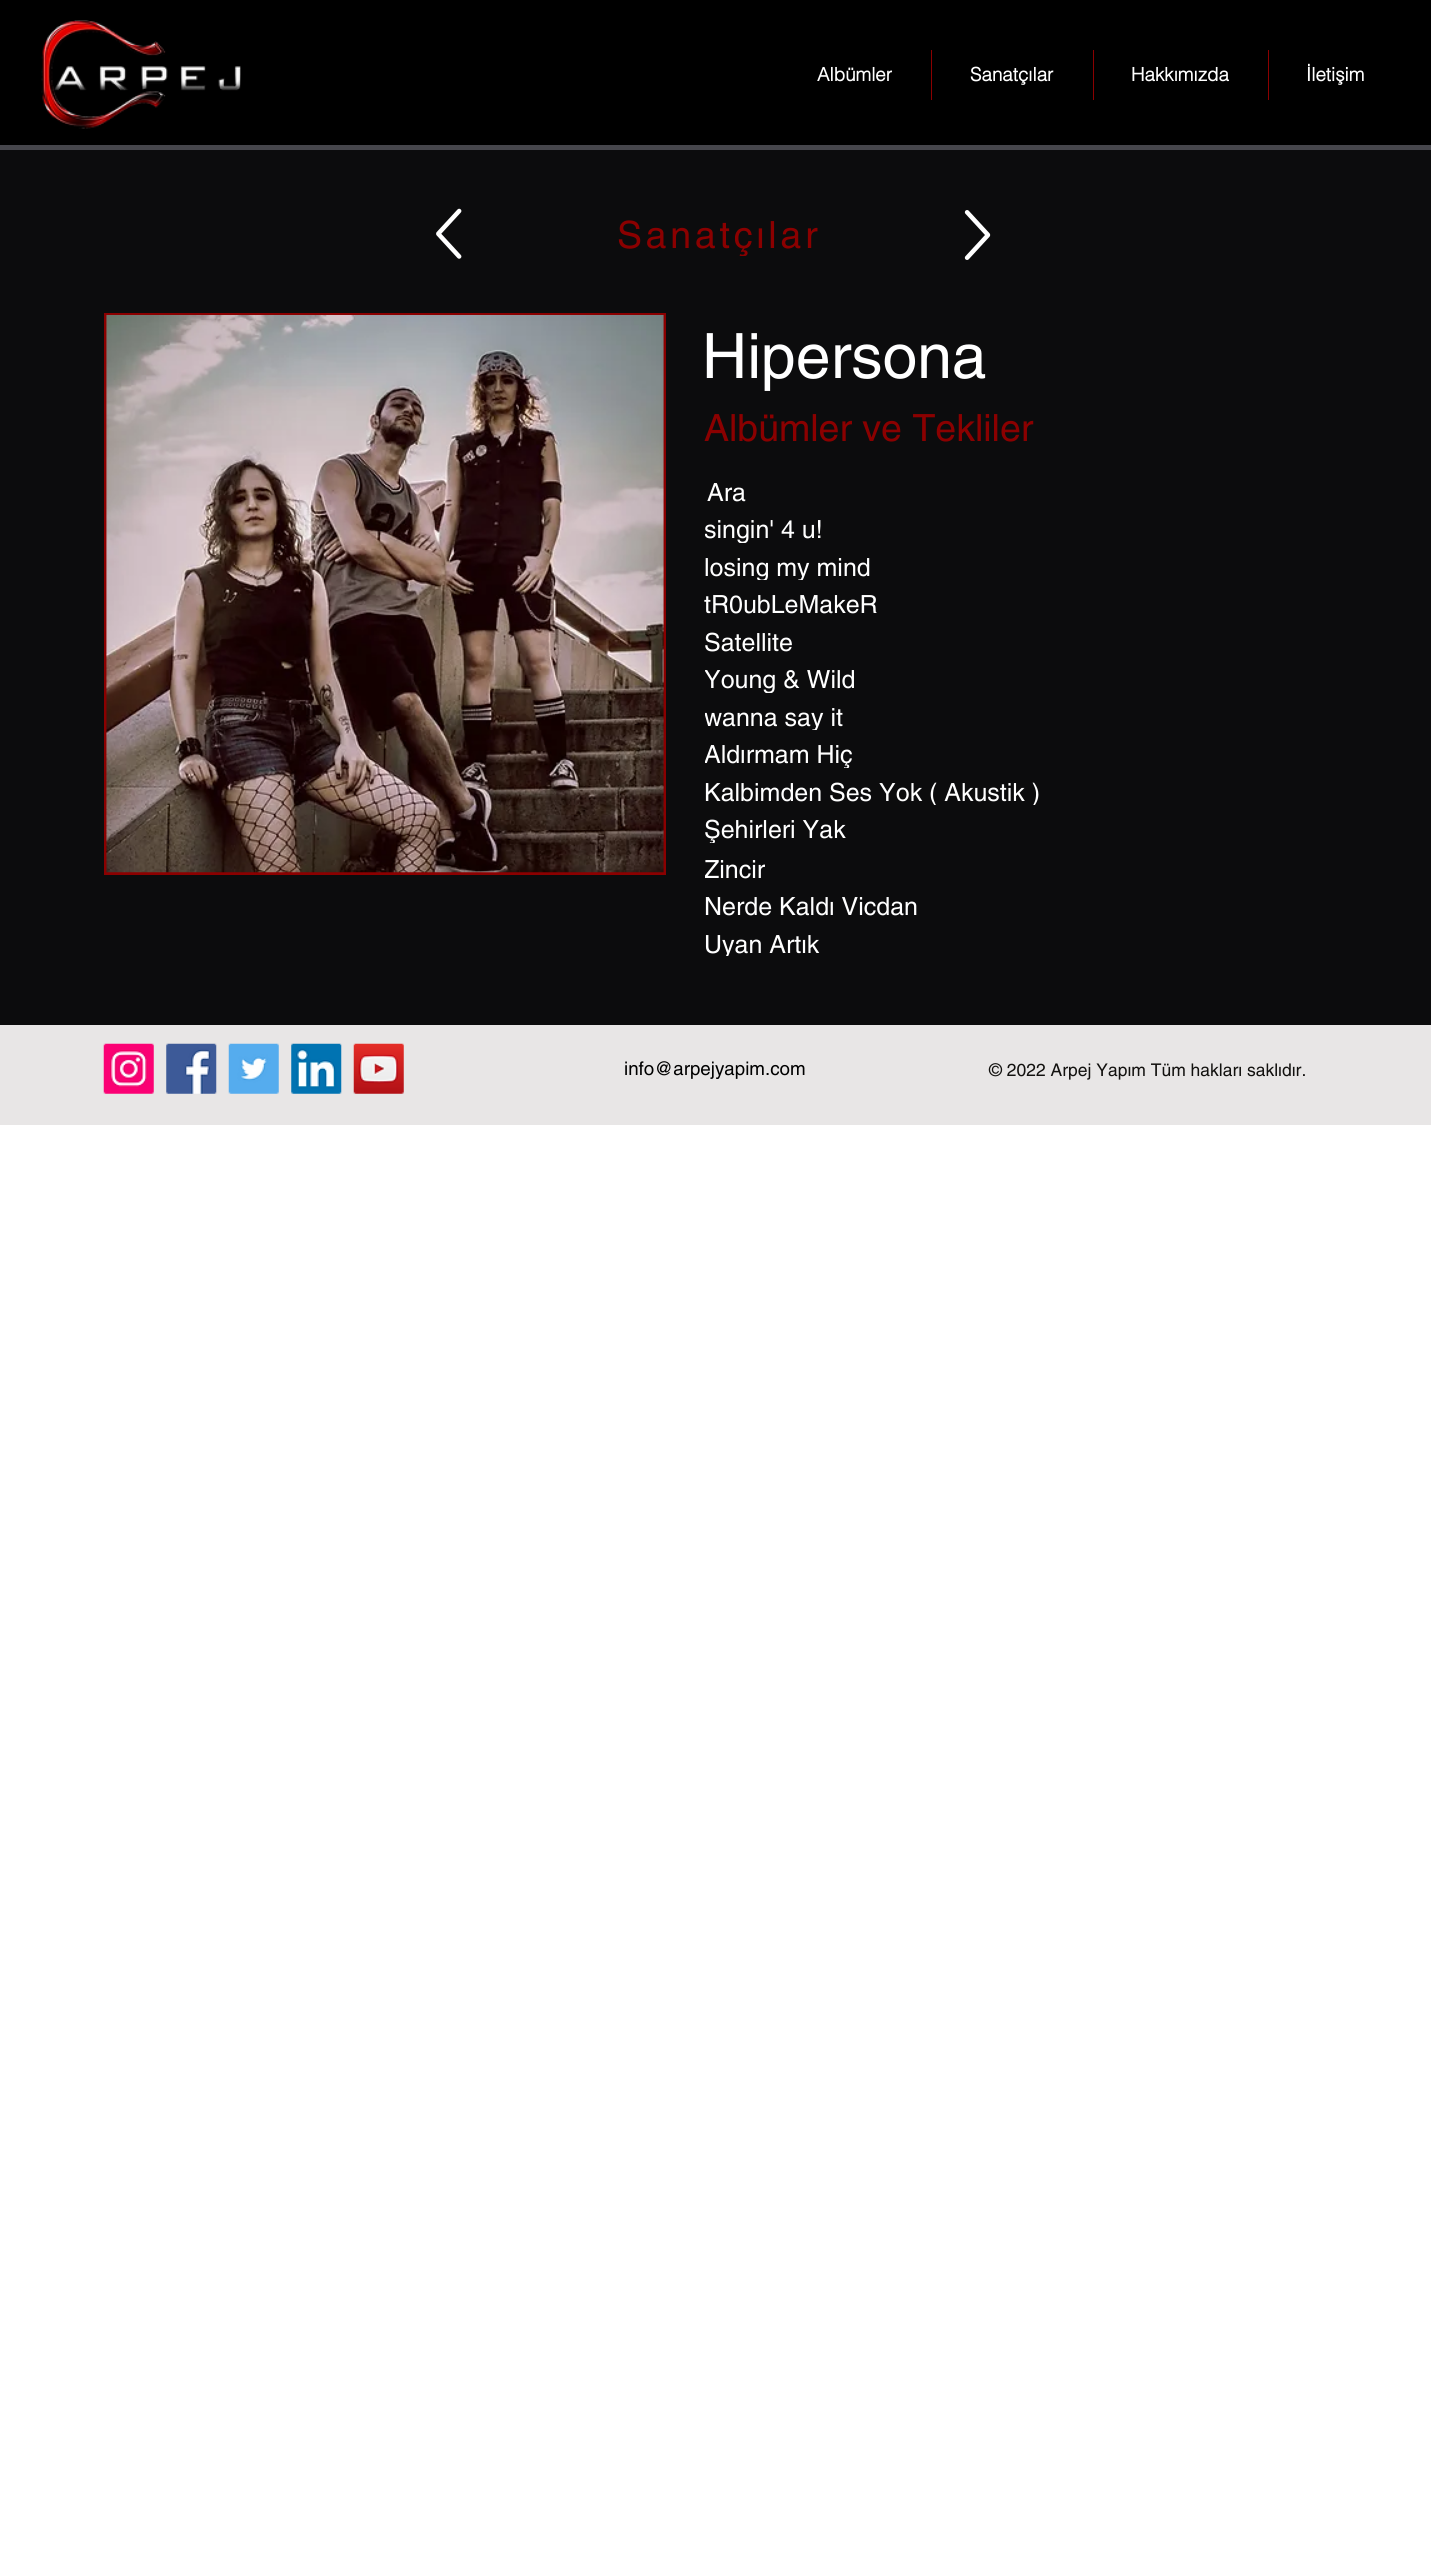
#include <cairo.h>
#include <math.h>
#include <stddef.h>


static void ink(cairo_t *ctx, unsigned color) {
    cairo_set_source_rgb(ctx, (color >> 16) / 255.0, (color >> 8 & 255) / 255.0, (color & 255) / 255.0);
}

static void write_spaced(cairo_t *ctx, double x, double y, const char *s, double letter, double word) {
    cairo_move_to(ctx, x, y);
    while (*s) {
        char ch[5] = {0};
        int n = 0;
        do ch[n++] = *s++; while ((*s & 0xC0) == 0x80);
        cairo_show_text(ctx, ch);
        cairo_rel_move_to(ctx, letter + word * (*ch == ' '), 0);
    }
}

static void paste(cairo_t *ctx, const char *path, double x, double y, double w, double h) {
    cairo_surface_t *image = cairo_image_surface_create_from_png(path);
    cairo_save(ctx);
    cairo_set_source_surface(ctx, image, x, y);
    cairo_rectangle(ctx, x, y, w, h);
    cairo_fill(ctx);
    cairo_restore(ctx);
    cairo_surface_destroy(image);
}

int main(void) {
    cairo_surface_t *surface = cairo_image_surface_create(CAIRO_FORMAT_RGB24, 1431, 2551);
    cairo_t *ctx = cairo_create(surface);
    cairo_font_options_t *options = cairo_font_options_create();
    cairo_font_options_set_hint_metrics(options, CAIRO_HINT_METRICS_OFF);
    cairo_font_options_set_hint_style(options, CAIRO_HINT_STYLE_NONE);
    cairo_set_font_options(ctx, options);
    cairo_set_miter_limit(ctx, 4);
    ink(ctx, 0xFFFFFF);
    cairo_paint(ctx);
    ink(ctx, 0x000000);
    cairo_rectangle(ctx, 0, 0, 1431, 145);
    cairo_fill(ctx);
    ink(ctx, 0x46464C);
    cairo_rectangle(ctx, 0, 145, 1431, 5);
    cairo_fill(ctx);
    paste(ctx, "media/1.png", 41, 20, 200, 109);
    cairo_select_font_face(ctx, "helvetica", CAIRO_FONT_SLANT_NORMAL, CAIRO_FONT_WEIGHT_BOLD);
    cairo_set_font_size(ctx, 18.75);
    ink(ctx, 0xFFFFFF);
    cairo_move_to(ctx, 817, 81);
    cairo_show_text(ctx, "Albümler");
    ink(ctx, 0x8B0000);
    cairo_rectangle(ctx, 931, 50, 1, 50);
    cairo_fill(ctx);
    ink(ctx, 0xFFFFFF);
    cairo_move_to(ctx, 970, 81);
    cairo_show_text(ctx, "Sanatçılar");
    ink(ctx, 0x8B0000);
    cairo_rectangle(ctx, 1093, 50, 1, 50);
    cairo_fill(ctx);
    ink(ctx, 0xFFFFFF);
    cairo_move_to(ctx, 1131, 81);
    cairo_show_text(ctx, "Hakkımızda");
    ink(ctx, 0x8B0000);
    cairo_rectangle(ctx, 1268, 50, 1, 50);
    cairo_fill(ctx);
    ink(ctx, 0xFFFFFF);
    cairo_move_to(ctx, 1306, 81);
    cairo_show_text(ctx, "İletişim");
    ink(ctx, 0x0C0C0D);
    cairo_rectangle(ctx, 0, 150, 1431, 875);
    cairo_fill(ctx);
    paste(ctx, "media/2.png", 436, 208, 26, 51);
    cairo_save(ctx);
    cairo_rectangle(ctx, 616, 213, 205, 43);
    cairo_clip(ctx);
    cairo_select_font_face(ctx, "helvetica", CAIRO_FONT_SLANT_NORMAL, CAIRO_FONT_WEIGHT_NORMAL);
    cairo_set_font_size(ctx, 37.5);
    ink(ctx, 0x8B0000);
    write_spaced(ctx, 617, 248, "Sanatçılar", 3.75, 0);
    cairo_restore(ctx);
    paste(ctx, "media/3.png", 964, 210, 27, 50);
    ink(ctx, 0x8B0000);
    cairo_rectangle(ctx, 104, 313, 562, 562);
    cairo_fill(ctx);
    paste(ctx, "media/4.png", 106, 315, 558, 558);
    cairo_select_font_face(ctx, "helvetica", CAIRO_FONT_SLANT_NORMAL, CAIRO_FONT_WEIGHT_NORMAL);
    cairo_set_font_size(ctx, 62.5);
    ink(ctx, 0xFFFFFF);
    cairo_move_to(ctx, 702, 378);
    cairo_show_text(ctx, "Hipersona");
    cairo_set_font_size(ctx, 37.5);
    ink(ctx, 0x8B0000);
    cairo_move_to(ctx, 704, 441);
    cairo_show_text(ctx, "Albümler ve Tekliler");
    cairo_set_font_size(ctx, 25);
    ink(ctx, 0xFFFFFF);
    cairo_move_to(ctx, 707, 501);
    cairo_show_text(ctx, "Ara");
    cairo_save(ctx);
    cairo_rectangle(ctx, 705, 518, 118, 25);
    cairo_clip(ctx);
    cairo_move_to(ctx, 704, 538);
    cairo_show_text(ctx, "singin' 4 u!");
    cairo_restore(ctx);
    cairo_save(ctx);
    cairo_rectangle(ctx, 705, 555, 166, 25);
    cairo_clip(ctx);
    cairo_move_to(ctx, 704, 576);
    cairo_show_text(ctx, "losing my mind");
    cairo_restore(ctx);
    cairo_move_to(ctx, 704, 613);
    cairo_show_text(ctx, "tR0ubLeMakeR");
    cairo_move_to(ctx, 704, 651);
    cairo_show_text(ctx, "Satellite");
    cairo_save(ctx);
    cairo_rectangle(ctx, 705, 668, 151, 25);
    cairo_clip(ctx);
    cairo_move_to(ctx, 704, 688);
    cairo_show_text(ctx, "Young & Wild");
    cairo_restore(ctx);
    cairo_save(ctx);
    cairo_rectangle(ctx, 705, 705, 139, 25);
    cairo_clip(ctx);
    cairo_move_to(ctx, 704, 726);
    cairo_show_text(ctx, "wanna say it");
    cairo_restore(ctx);
    cairo_save(ctx);
    cairo_rectangle(ctx, 705, 743, 148, 25);
    cairo_clip(ctx);
    cairo_move_to(ctx, 704, 763);
    cairo_show_text(ctx, "Aldırmam Hiç");
    cairo_restore(ctx);
    cairo_move_to(ctx, 704, 801);
    cairo_show_text(ctx, "Kalbimden Ses Yok");
    cairo_save(ctx);
    cairo_rectangle(ctx, 705, 780, 335, 25);
    cairo_clip(ctx);
    cairo_move_to(ctx, 929, 801);
    cairo_show_text(ctx, "( Akustik )");
    cairo_restore(ctx);
    cairo_save(ctx);
    cairo_rectangle(ctx, 705, 818, 141, 25);
    cairo_clip(ctx);
    cairo_move_to(ctx, 704, 838);
    cairo_show_text(ctx, "Şehirleri Yak");
    cairo_restore(ctx);
    cairo_save(ctx);
    cairo_rectangle(ctx, 705, 856, 60, 25);
    cairo_clip(ctx);
    cairo_move_to(ctx, 704, 878);
    cairo_show_text(ctx, "Zincir");
    cairo_restore(ctx);
    cairo_move_to(ctx, 704, 915);
    cairo_show_text(ctx, "Nerde Kaldı Vicdan");
    cairo_save(ctx);
    cairo_rectangle(ctx, 705, 931, 115, 25);
    cairo_clip(ctx);
    cairo_move_to(ctx, 704, 953);
    cairo_show_text(ctx, "Uyan Artık");
    cairo_restore(ctx);
    ink(ctx, 0xE8E6E6);
    cairo_rectangle(ctx, 0, 1025, 1431, 100);
    cairo_fill(ctx);
    paste(ctx, "media/5.png", 103, 1043, 51, 51);
    paste(ctx, "media/6.png", 166, 1043, 51, 51);
    paste(ctx, "media/7.png", 228, 1043, 51, 51);
    paste(ctx, "media/8.png", 291, 1043, 51, 51);
    paste(ctx, "media/9.png", 353, 1043, 51, 51);
    cairo_set_font_size(ctx, 18.75);
    ink(ctx, 0x000000);
    cairo_move_to(ctx, 624, 1075);
    cairo_show_text(ctx, "info@arpejyapim.com");
    cairo_set_font_size(ctx, 17.5);
    ink(ctx, 0x12110F);
    cairo_move_to(ctx, 989, 1076);
    cairo_show_text(ctx, "© 2022 Arpej Yapım Tüm hakları saklıdır.");
    cairo_surface_write_to_png(surface, "image.png");
    cairo_font_options_destroy(options);
    cairo_destroy(ctx);
    cairo_surface_destroy(surface);
    return 0;
}
